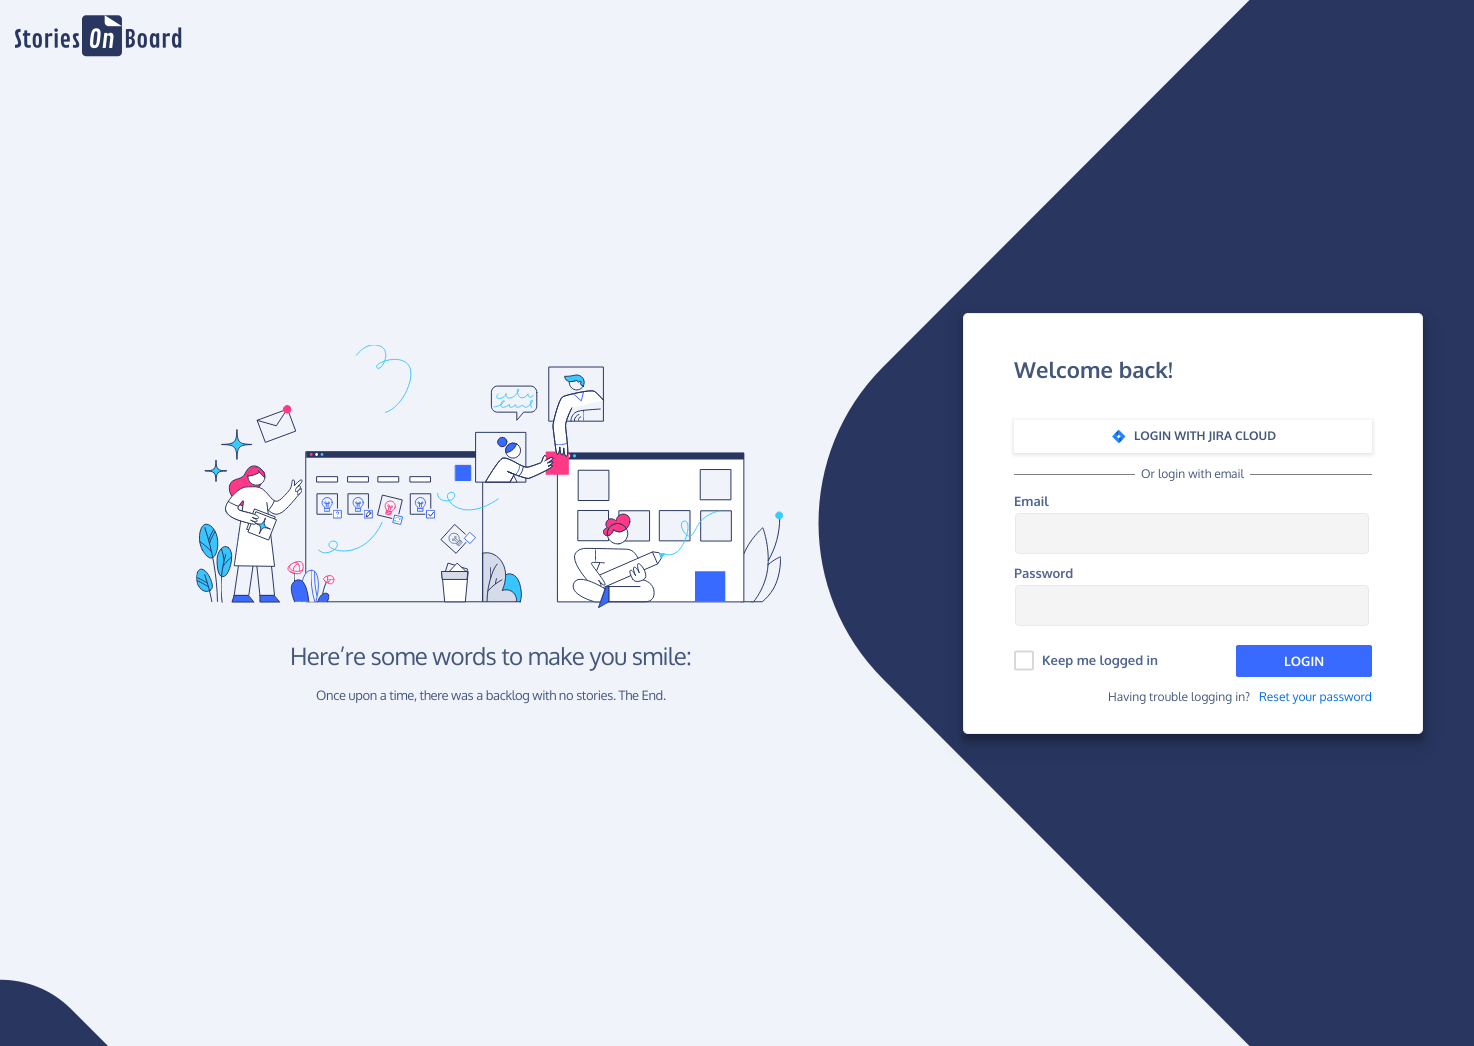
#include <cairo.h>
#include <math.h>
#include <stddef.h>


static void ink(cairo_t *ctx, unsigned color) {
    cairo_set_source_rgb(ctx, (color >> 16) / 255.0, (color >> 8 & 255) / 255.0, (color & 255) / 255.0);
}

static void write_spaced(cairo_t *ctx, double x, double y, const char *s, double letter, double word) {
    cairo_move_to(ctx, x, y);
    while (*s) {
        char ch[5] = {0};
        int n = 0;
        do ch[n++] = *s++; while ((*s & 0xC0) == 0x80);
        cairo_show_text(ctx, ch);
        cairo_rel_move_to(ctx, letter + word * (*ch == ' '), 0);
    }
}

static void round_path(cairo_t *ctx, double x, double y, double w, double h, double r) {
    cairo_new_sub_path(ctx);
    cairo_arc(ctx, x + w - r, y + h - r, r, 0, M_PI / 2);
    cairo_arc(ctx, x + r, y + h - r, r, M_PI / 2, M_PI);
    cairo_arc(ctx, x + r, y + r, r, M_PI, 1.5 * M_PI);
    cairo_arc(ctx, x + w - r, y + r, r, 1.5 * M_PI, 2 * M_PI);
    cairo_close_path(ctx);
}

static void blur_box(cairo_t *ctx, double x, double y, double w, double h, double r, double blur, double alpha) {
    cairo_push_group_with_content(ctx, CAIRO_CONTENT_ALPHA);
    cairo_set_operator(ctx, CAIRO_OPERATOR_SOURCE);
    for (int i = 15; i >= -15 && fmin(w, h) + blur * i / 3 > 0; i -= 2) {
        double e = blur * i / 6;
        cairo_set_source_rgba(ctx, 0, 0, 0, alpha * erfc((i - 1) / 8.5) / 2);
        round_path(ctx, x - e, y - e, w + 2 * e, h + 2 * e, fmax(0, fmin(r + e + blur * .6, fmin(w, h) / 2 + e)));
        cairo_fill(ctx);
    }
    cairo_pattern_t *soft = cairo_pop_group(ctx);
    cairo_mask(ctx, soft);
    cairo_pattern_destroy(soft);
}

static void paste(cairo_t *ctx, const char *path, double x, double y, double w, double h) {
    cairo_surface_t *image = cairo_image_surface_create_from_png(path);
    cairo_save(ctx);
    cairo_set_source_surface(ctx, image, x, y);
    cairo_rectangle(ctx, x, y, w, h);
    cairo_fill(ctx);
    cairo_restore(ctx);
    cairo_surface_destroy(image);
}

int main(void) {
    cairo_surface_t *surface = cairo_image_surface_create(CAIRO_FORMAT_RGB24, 1474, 1046);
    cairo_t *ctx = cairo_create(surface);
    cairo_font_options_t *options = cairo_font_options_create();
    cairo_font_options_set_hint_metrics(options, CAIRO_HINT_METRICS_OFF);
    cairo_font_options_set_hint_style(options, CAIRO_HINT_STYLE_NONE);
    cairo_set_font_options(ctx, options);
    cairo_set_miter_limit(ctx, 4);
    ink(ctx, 0xF1F3FA);
    cairo_paint(ctx);
    ink(ctx, 0x283660);
    cairo_new_path(ctx);
    cairo_move_to(ctx, 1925, -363);
    cairo_line_to(ctx, 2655, 367);
    cairo_curve_to(ctx, 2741, 453, 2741, 593, 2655, 679);
    cairo_line_to(ctx, 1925, 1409);
    cairo_curve_to(ctx, 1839, 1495, 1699, 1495, 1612, 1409);
    cairo_line_to(ctx, 883, 679);
    cairo_curve_to(ctx, 797, 593, 797, 453, 883, 367);
    cairo_line_to(ctx, 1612, -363);
    cairo_curve_to(ctx, 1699, -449, 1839, -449, 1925, -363);
    cairo_close_path(ctx);
    cairo_fill(ctx);
    paste(ctx, "media/1.png", 15, 15, 167, 42);
    paste(ctx, "media/2.png", 196, 345, 587, 263);
    cairo_select_font_face(ctx, "Oxygen", CAIRO_FONT_SLANT_NORMAL, CAIRO_FONT_WEIGHT_NORMAL);
    cairo_set_font_size(ctx, 24);
    ink(ctx, 0x44577A);
    write_spaced(ctx, 290, 665, "Here’re some words to make you smile:", -0.65, 0);
    cairo_set_font_size(ctx, 13);
    write_spaced(ctx, 316, 700, "Once upon a time, there was a backlog with no stories. The End.", -0.35, 0);
    ink(ctx, 0x000000);
    blur_box(ctx, 963, 319, 460, 421, 0, 3, 0.23);
    blur_box(ctx, 963, 323, 460, 421, 0, 10, 0.19);
    ink(ctx, 0xFFFFFF);
    round_path(ctx, 963.5, 313.5, 459, 420, 4.5);
    cairo_fill_preserve(ctx);
    ink(ctx, 0xEEEEEE);
    cairo_set_line_width(ctx, 1);
    cairo_stroke(ctx);
    cairo_select_font_face(ctx, "Oxygen", CAIRO_FONT_SLANT_NORMAL, CAIRO_FONT_WEIGHT_BOLD);
    cairo_set_font_size(ctx, 22);
    ink(ctx, 0x44577A);
    cairo_move_to(ctx, 1014, 378);
    cairo_show_text(ctx, "Welcome back!");
    cairo_save(ctx);
    cairo_set_fill_rule(ctx, CAIRO_FILL_RULE_EVEN_ODD);
    cairo_new_path(ctx);
    cairo_move_to(ctx, 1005, 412);
    cairo_line_to(ctx, 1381, 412);
    cairo_line_to(ctx, 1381, 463);
    cairo_line_to(ctx, 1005, 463);
    cairo_close_path(ctx);
    cairo_move_to(ctx, 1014, 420);
    cairo_line_to(ctx, 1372, 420);
    cairo_line_to(ctx, 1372, 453);
    cairo_line_to(ctx, 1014, 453);
    cairo_close_path(ctx);
    cairo_clip(ctx);
    ink(ctx, 0x000000);
    blur_box(ctx, 1014, 421, 358, 33, 0, 2.5, 0.15);
    cairo_restore(ctx);
    paste(ctx, "media/3.png", 1112, 429, 14, 15);
    cairo_set_font_size(ctx, 12);
    cairo_move_to(ctx, 1134, 440);
    cairo_show_text(ctx, "LOGIN WITH JIRA CLOUD");
    ink(ctx, 0x808080);
    cairo_rectangle(ctx, 1014, 474, 121, 1);
    cairo_fill(ctx);
    cairo_select_font_face(ctx, "Oxygen", CAIRO_FONT_SLANT_NORMAL, CAIRO_FONT_WEIGHT_NORMAL);
    ink(ctx, 0x44577A);
    cairo_move_to(ctx, 1141, 478);
    cairo_show_text(ctx, "Or login with email");
    ink(ctx, 0x808080);
    cairo_rectangle(ctx, 1250, 474, 122, 1);
    cairo_fill(ctx);
    cairo_select_font_face(ctx, "Oxygen", CAIRO_FONT_SLANT_NORMAL, CAIRO_FONT_WEIGHT_BOLD);
    cairo_set_font_size(ctx, 13);
    ink(ctx, 0x506690);
    cairo_move_to(ctx, 1014, 506);
    cairo_show_text(ctx, "Email");
    ink(ctx, 0xF4F4F5);
    round_path(ctx, 1015.5, 513.5, 353, 40, 3.5);
    cairo_fill_preserve(ctx);
    ink(ctx, 0xE9E9EB);
    cairo_stroke(ctx);
    ink(ctx, 0x506690);
    cairo_move_to(ctx, 1014, 578);
    cairo_show_text(ctx, "Password");
    ink(ctx, 0xF4F4F5);
    round_path(ctx, 1015.5, 585.5, 353, 40, 3.5);
    cairo_fill_preserve(ctx);
    ink(ctx, 0xE9E9EB);
    cairo_stroke(ctx);
    paste(ctx, "media/4.png", 1014, 650, 20, 21);
    ink(ctx, 0x506690);
    cairo_move_to(ctx, 1042, 665);
    cairo_show_text(ctx, "Keep me logged in");
    ink(ctx, 0x396AFF);
    round_path(ctx, 1236, 645, 136, 32, 2);
    cairo_fill(ctx);
    cairo_rectangle(ctx, 1371, 646, 1, 30);
    cairo_fill(ctx);
    cairo_rectangle(ctx, 1236, 646, 1, 30);
    cairo_fill(ctx);
    ink(ctx, 0xFFFFFF);
    cairo_move_to(ctx, 1284, 666);
    cairo_show_text(ctx, "LOGIN");
    cairo_select_font_face(ctx, "Oxygen", CAIRO_FONT_SLANT_NORMAL, CAIRO_FONT_WEIGHT_NORMAL);
    cairo_set_font_size(ctx, 12);
    ink(ctx, 0x44577A);
    cairo_move_to(ctx, 1108, 701);
    cairo_show_text(ctx, "Having trouble logging in?");
    ink(ctx, 0x006CE5);
    cairo_move_to(ctx, 1259, 701);
    cairo_show_text(ctx, "Reset your password");
    ink(ctx, 0x283660);
    cairo_new_path(ctx);
    cairo_move_to(ctx, 71, 1009);
    cairo_line_to(ctx, 142, 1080);
    cairo_curve_to(ctx, 181, 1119, 181, 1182, 142, 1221);
    cairo_line_to(ctx, 50, 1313);
    cairo_curve_to(ctx, 11, 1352, -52, 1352, -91, 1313);
    cairo_line_to(ctx, -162, 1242);
    cairo_curve_to(ctx, -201, 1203, -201, 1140, -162, 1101);
    cairo_line_to(ctx, -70, 1009);
    cairo_curve_to(ctx, -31, 970, 32, 970, 71, 1009);
    cairo_close_path(ctx);
    cairo_fill(ctx);
    cairo_surface_write_to_png(surface, "image.png");
    cairo_font_options_destroy(options);
    cairo_destroy(ctx);
    cairo_surface_destroy(surface);
    return 0;
}
